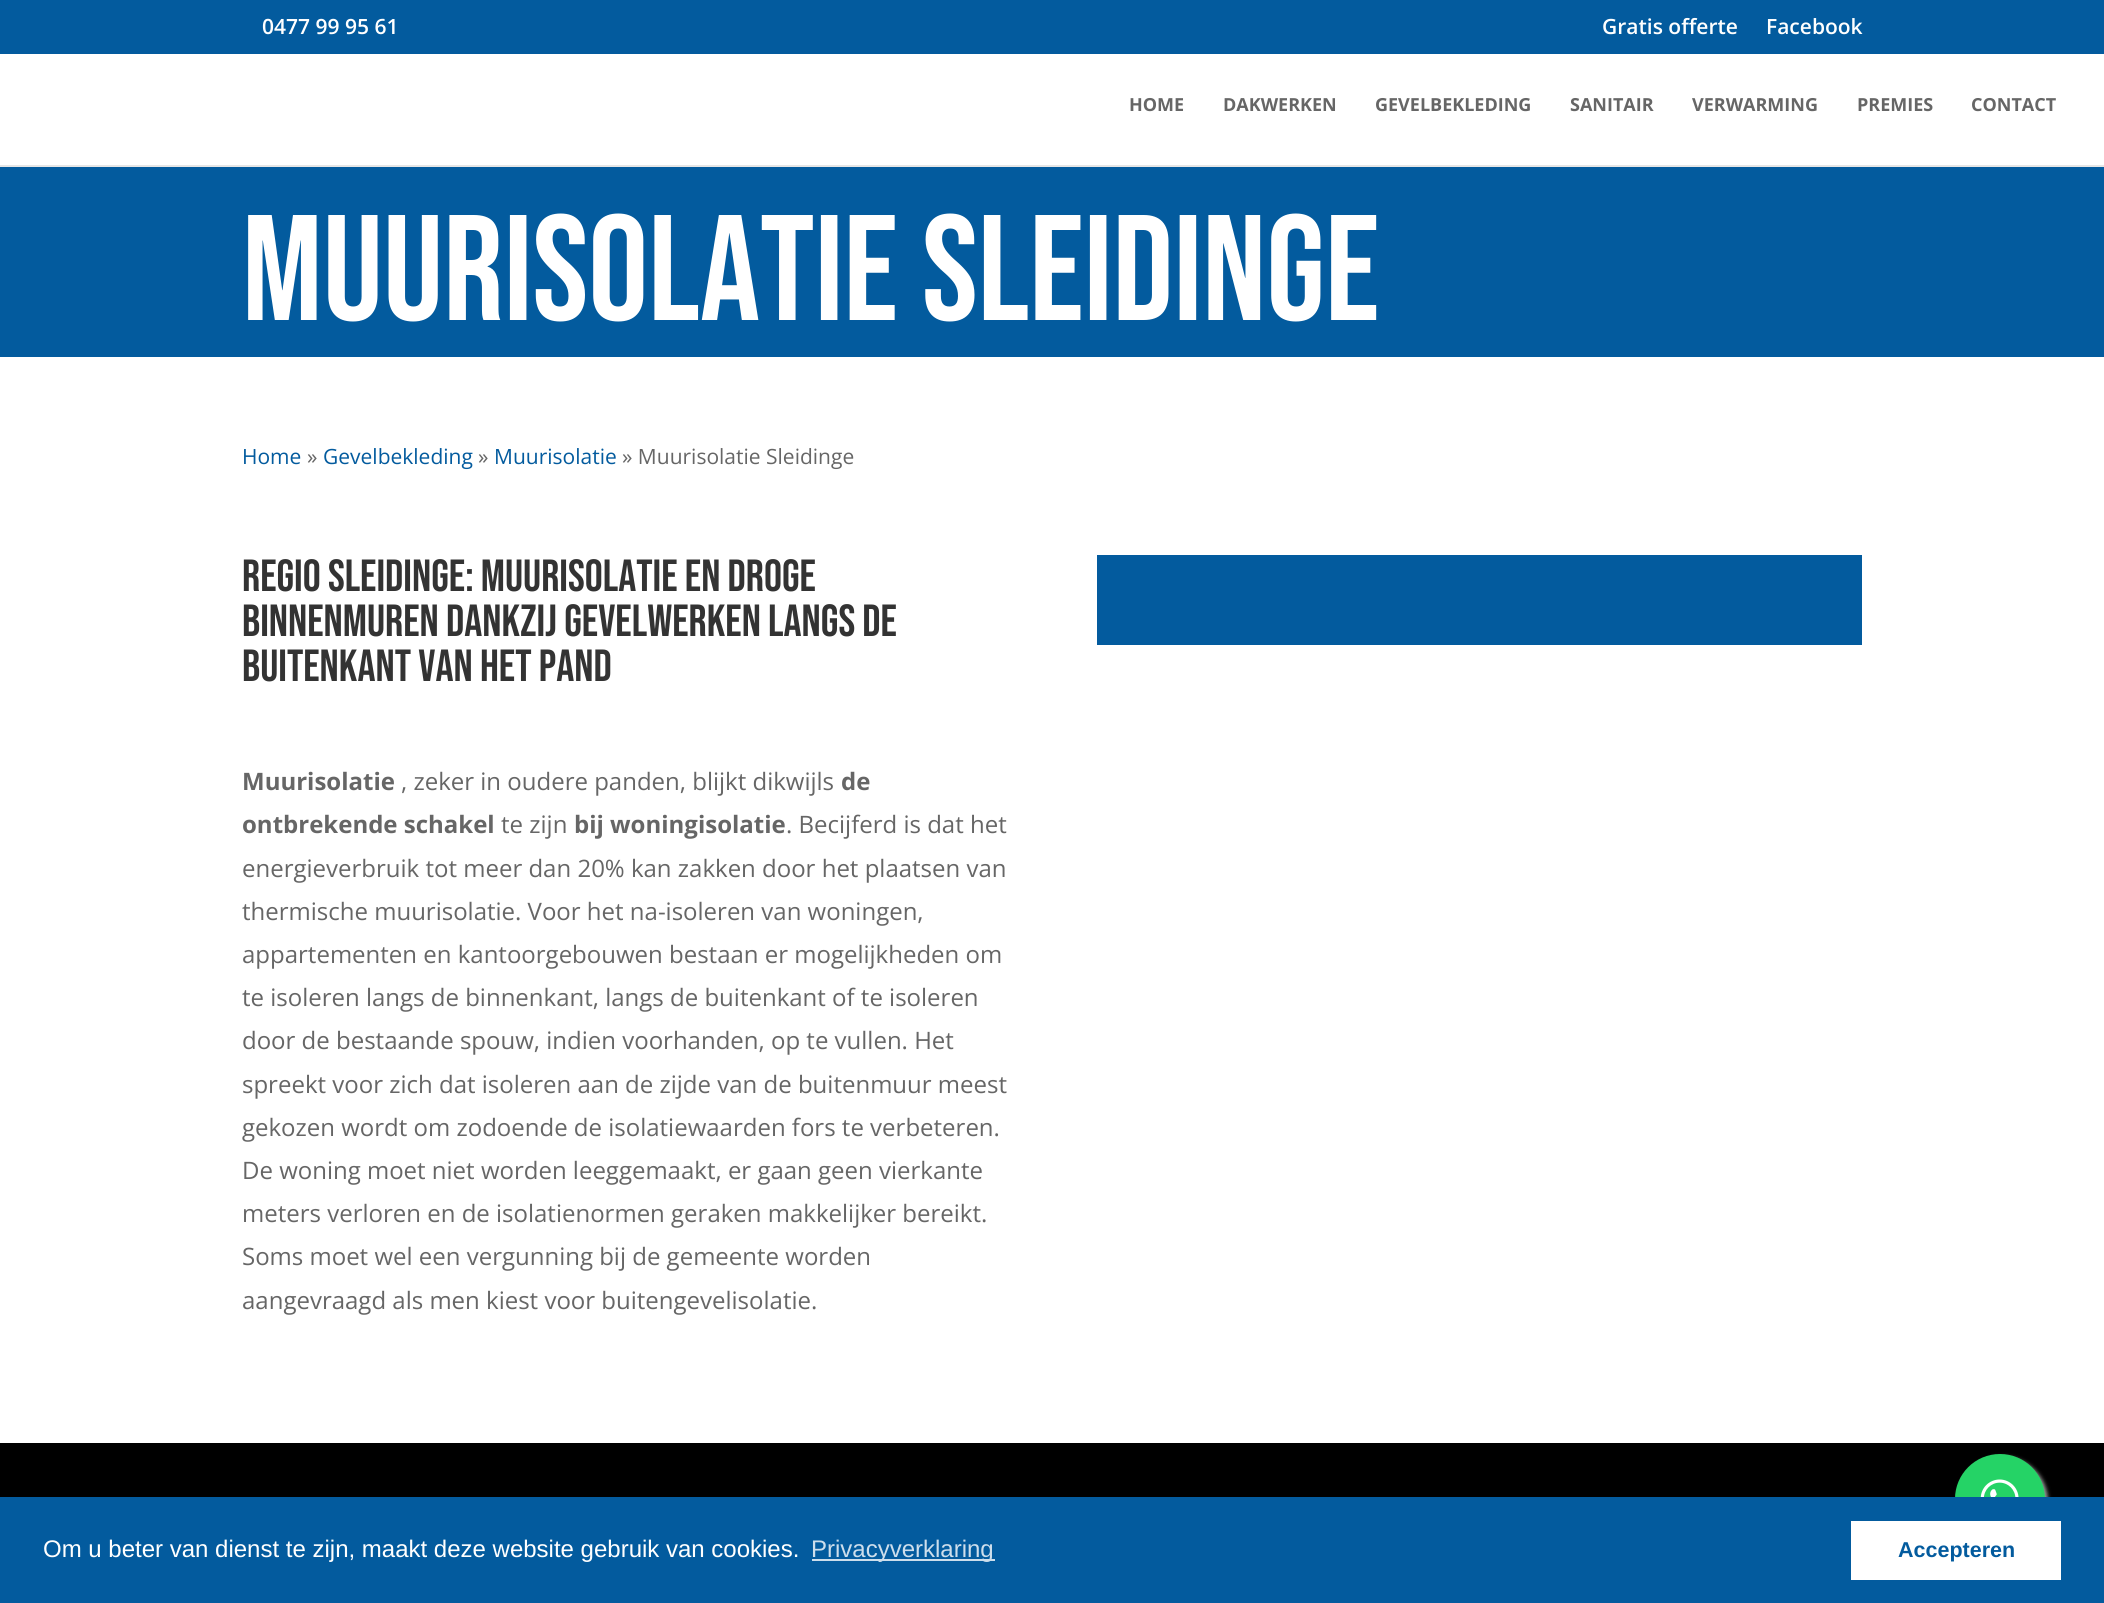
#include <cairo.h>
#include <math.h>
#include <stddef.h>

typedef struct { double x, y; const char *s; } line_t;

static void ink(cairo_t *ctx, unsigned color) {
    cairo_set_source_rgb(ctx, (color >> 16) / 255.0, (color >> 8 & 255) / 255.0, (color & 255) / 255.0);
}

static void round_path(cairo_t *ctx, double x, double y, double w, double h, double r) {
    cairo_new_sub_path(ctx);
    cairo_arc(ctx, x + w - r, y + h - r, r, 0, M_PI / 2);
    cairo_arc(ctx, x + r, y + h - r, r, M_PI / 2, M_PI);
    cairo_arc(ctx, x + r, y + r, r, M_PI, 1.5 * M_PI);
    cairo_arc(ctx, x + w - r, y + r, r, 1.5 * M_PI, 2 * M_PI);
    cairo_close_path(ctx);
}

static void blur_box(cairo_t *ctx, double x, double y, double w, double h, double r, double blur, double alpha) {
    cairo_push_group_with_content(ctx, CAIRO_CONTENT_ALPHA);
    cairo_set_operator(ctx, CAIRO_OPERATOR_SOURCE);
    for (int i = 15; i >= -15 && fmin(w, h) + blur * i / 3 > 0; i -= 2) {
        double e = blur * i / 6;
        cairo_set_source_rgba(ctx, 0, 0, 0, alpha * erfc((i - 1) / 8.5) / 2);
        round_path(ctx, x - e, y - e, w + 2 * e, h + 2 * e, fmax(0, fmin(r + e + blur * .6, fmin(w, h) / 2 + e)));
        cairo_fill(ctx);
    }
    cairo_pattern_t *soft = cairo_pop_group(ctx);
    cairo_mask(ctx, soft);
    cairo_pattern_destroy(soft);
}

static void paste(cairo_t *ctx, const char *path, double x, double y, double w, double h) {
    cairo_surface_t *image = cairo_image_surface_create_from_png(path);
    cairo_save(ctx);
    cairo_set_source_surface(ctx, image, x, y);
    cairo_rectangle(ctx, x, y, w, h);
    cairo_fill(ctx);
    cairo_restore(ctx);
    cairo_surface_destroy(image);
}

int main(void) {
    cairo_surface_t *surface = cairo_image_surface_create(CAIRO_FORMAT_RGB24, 2104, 1603);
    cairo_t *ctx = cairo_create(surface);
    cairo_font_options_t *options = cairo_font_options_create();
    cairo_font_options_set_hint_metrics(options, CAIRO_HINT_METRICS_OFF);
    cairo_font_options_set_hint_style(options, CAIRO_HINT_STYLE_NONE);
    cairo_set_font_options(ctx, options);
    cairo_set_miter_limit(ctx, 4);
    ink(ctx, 0xFFFFFF);
    cairo_paint(ctx);
    ink(ctx, 0x035B9E);
    cairo_rectangle(ctx, 0, 0, 2104, 54);
    cairo_fill(ctx);
    cairo_select_font_face(ctx, "Open Sans SemiBold", CAIRO_FONT_SLANT_NORMAL, CAIRO_FONT_WEIGHT_NORMAL);
    cairo_set_font_size(ctx, 21);
    ink(ctx, 0xFFFFFF);
    {
        static const line_t items[] = {
            {262, 34, "0477 99 95 61"},
            {1602, 34, "Gratis offerte"},
            {1766, 34, "Facebook"},
        };
        for (size_t i = 0; i < sizeof items / sizeof *items; i++) {
            cairo_move_to(ctx, items[i].x, items[i].y);
            cairo_show_text(ctx, items[i].s);
        }
    }
    ink(ctx, 0xE6E6E6);
    cairo_new_path(ctx);
    cairo_move_to(ctx, 0, 165);
    cairo_line_to(ctx, 0, 167);
    cairo_line_to(ctx, 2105, 167);
    cairo_line_to(ctx, 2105, 47);
    cairo_line_to(ctx, 2104, 47);
    cairo_line_to(ctx, 2104, 165);
    cairo_close_path(ctx);
    cairo_fill(ctx);
    cairo_select_font_face(ctx, "Open Sans", CAIRO_FONT_SLANT_NORMAL, CAIRO_FONT_WEIGHT_BOLD);
    cairo_set_font_size(ctx, 18);
    ink(ctx, 0x666666);
    {
        static const line_t items[] = {
            {1129, 111, "HOME"},
            {1223, 111, "DAKWERKEN"},
            {1375, 111, "GEVELBEKLEDING"},
            {1570, 111, "SANITAIR"},
            {1692, 111, "VERWARMING"},
            {1857, 111, "PREMIES"},
            {1971, 111, "CONTACT"},
        };
        for (size_t i = 0; i < sizeof items / sizeof *items; i++) {
            cairo_move_to(ctx, items[i].x, items[i].y);
            cairo_show_text(ctx, items[i].s);
        }
    }
    ink(ctx, 0x035B9E);
    cairo_rectangle(ctx, 0, 167, 2104, 190);
    cairo_fill(ctx);
    cairo_select_font_face(ctx, "Bebas Neue", CAIRO_FONT_SLANT_NORMAL, CAIRO_FONT_WEIGHT_NORMAL);
    cairo_set_font_size(ctx, 150);
    ink(ctx, 0xFFFFFF);
    cairo_move_to(ctx, 242, 320);
    cairo_show_text(ctx, "Muurisolatie Sleidinge");
    cairo_select_font_face(ctx, "Open Sans", CAIRO_FONT_SLANT_NORMAL, CAIRO_FONT_WEIGHT_NORMAL);
    cairo_set_font_size(ctx, 21);
    ink(ctx, 0x035B9E);
    cairo_move_to(ctx, 242, 464);
    cairo_show_text(ctx, "Home");
    ink(ctx, 0x666666);
    cairo_move_to(ctx, 307, 464);
    cairo_show_text(ctx, "»");
    ink(ctx, 0x035B9E);
    cairo_move_to(ctx, 323, 464);
    cairo_show_text(ctx, "Gevelbekleding");
    ink(ctx, 0x666666);
    cairo_move_to(ctx, 478, 464);
    cairo_show_text(ctx, "»");
    ink(ctx, 0x035B9E);
    cairo_move_to(ctx, 494, 464);
    cairo_show_text(ctx, "Muurisolatie");
    ink(ctx, 0x666666);
    cairo_move_to(ctx, 622, 464);
    cairo_show_text(ctx, "» Muurisolatie Sleidinge");
    cairo_select_font_face(ctx, "Bebas Neue", CAIRO_FONT_SLANT_NORMAL, CAIRO_FONT_WEIGHT_NORMAL);
    cairo_set_font_size(ctx, 45);
    ink(ctx, 0x333333);
    {
        static const line_t items[] = {
            {242, 591, "Regio Sleidinge: muurisolatie en droge"},
            {242, 636, "binnenmuren dankzij gevelwerken langs de"},
            {242, 681, "buitenkant van het pand"},
        };
        for (size_t i = 0; i < sizeof items / sizeof *items; i++) {
            cairo_move_to(ctx, items[i].x, items[i].y);
            cairo_show_text(ctx, items[i].s);
        }
    }
    ink(ctx, 0x035B9E);
    cairo_rectangle(ctx, 1097, 555, 765, 90);
    cairo_fill(ctx);
    cairo_select_font_face(ctx, "Open Sans", CAIRO_FONT_SLANT_NORMAL, CAIRO_FONT_WEIGHT_BOLD);
    cairo_set_font_size(ctx, 24);
    ink(ctx, 0x666666);
    cairo_move_to(ctx, 242, 790);
    cairo_show_text(ctx, "Muurisolatie");
    cairo_select_font_face(ctx, "Open Sans", CAIRO_FONT_SLANT_NORMAL, CAIRO_FONT_WEIGHT_NORMAL);
    cairo_move_to(ctx, 401, 790);
    cairo_show_text(ctx, ", zeker in oudere panden, blijkt dikwijls");
    cairo_select_font_face(ctx, "Open Sans", CAIRO_FONT_SLANT_NORMAL, CAIRO_FONT_WEIGHT_BOLD);
    cairo_move_to(ctx, 841, 790);
    cairo_show_text(ctx, "de");
    cairo_move_to(ctx, 242, 833);
    cairo_show_text(ctx, "ontbrekende schakel");
    cairo_select_font_face(ctx, "Open Sans", CAIRO_FONT_SLANT_NORMAL, CAIRO_FONT_WEIGHT_NORMAL);
    cairo_move_to(ctx, 501, 833);
    cairo_show_text(ctx, "te zijn");
    cairo_select_font_face(ctx, "Open Sans", CAIRO_FONT_SLANT_NORMAL, CAIRO_FONT_WEIGHT_BOLD);
    cairo_move_to(ctx, 574, 833);
    cairo_show_text(ctx, "bij woningisolatie");
    cairo_select_font_face(ctx, "Open Sans", CAIRO_FONT_SLANT_NORMAL, CAIRO_FONT_WEIGHT_NORMAL);
    {
        static const line_t items[] = {
            {786, 833, ". Becijferd is dat het"},
            {242, 877, "energieverbruik tot meer dan 20% kan zakken door het plaatsen van"},
            {242, 920, "thermische muurisolatie. Voor het na-isoleren van woningen,"},
            {242, 963, "appartementen en kantoorgebouwen bestaan er mogelijkheden om"},
            {242, 1006, "te isoleren langs de binnenkant, langs de buitenkant of te isoleren"},
            {242, 1049, "door de bestaande spouw, indien voorhanden, op te vullen. Het"},
            {242, 1093, "spreekt voor zich dat isoleren aan de zijde van de buitenmuur meest"},
            {242, 1136, "gekozen wordt om zodoende de isolatiewaarden fors te verbeteren."},
            {242, 1179, "De woning moet niet worden leeggemaakt, er gaan geen vierkante"},
            {242, 1222, "meters verloren en de isolatienormen geraken makkelijker bereikt."},
            {242, 1265, "Soms moet wel een vergunning bij de gemeente worden"},
            {242, 1309, "aangevraagd als men kiest voor buitengevelisolatie."},
        };
        for (size_t i = 0; i < sizeof items / sizeof *items; i++) {
            cairo_move_to(ctx, items[i].x, items[i].y);
            cairo_show_text(ctx, items[i].s);
        }
    }
    ink(ctx, 0x000000);
    cairo_rectangle(ctx, 0, 1443, 2104, 54);
    cairo_fill(ctx);
    ink(ctx, 0x999999);
    blur_box(ctx, 1958, 1457, 90, 90, 45, 2, 1);
    ink(ctx, 0x25D366);
    cairo_arc(ctx, 2000, 1499, 45, 0, 2 * M_PI);
    cairo_fill(ctx);
    paste(ctx, "media/1.png", 1980, 1479, 39, 18);
    ink(ctx, 0x035B9E);
    cairo_rectangle(ctx, 0, 1497, 2104, 106);
    cairo_fill(ctx);
    cairo_select_font_face(ctx, "Liberation Sans", CAIRO_FONT_SLANT_NORMAL, CAIRO_FONT_WEIGHT_NORMAL);
    ink(ctx, 0xFFFFFF);
    cairo_move_to(ctx, 43, 1557);
    cairo_show_text(ctx, "Om u beter van dienst te zijn, maakt deze website gebruik van cookies.");
    ink(ctx, 0xCDDEEC);
    cairo_rectangle(ctx, 812, 1559, 183, 2);
    cairo_fill(ctx);
    cairo_move_to(ctx, 811, 1557);
    cairo_show_text(ctx, "Privacyverklaring");
    ink(ctx, 0xFFFFFF);
    cairo_rectangle(ctx, 1851, 1521, 210, 59);
    cairo_fill(ctx);
    cairo_select_font_face(ctx, "Liberation Sans", CAIRO_FONT_SLANT_NORMAL, CAIRO_FONT_WEIGHT_BOLD);
    cairo_set_font_size(ctx, 21.5);
    ink(ctx, 0x035B9E);
    cairo_move_to(ctx, 1898, 1557);
    cairo_show_text(ctx, "Accepteren");
    cairo_surface_write_to_png(surface, "image.png");
    cairo_font_options_destroy(options);
    cairo_destroy(ctx);
    cairo_surface_destroy(surface);
    return 0;
}
